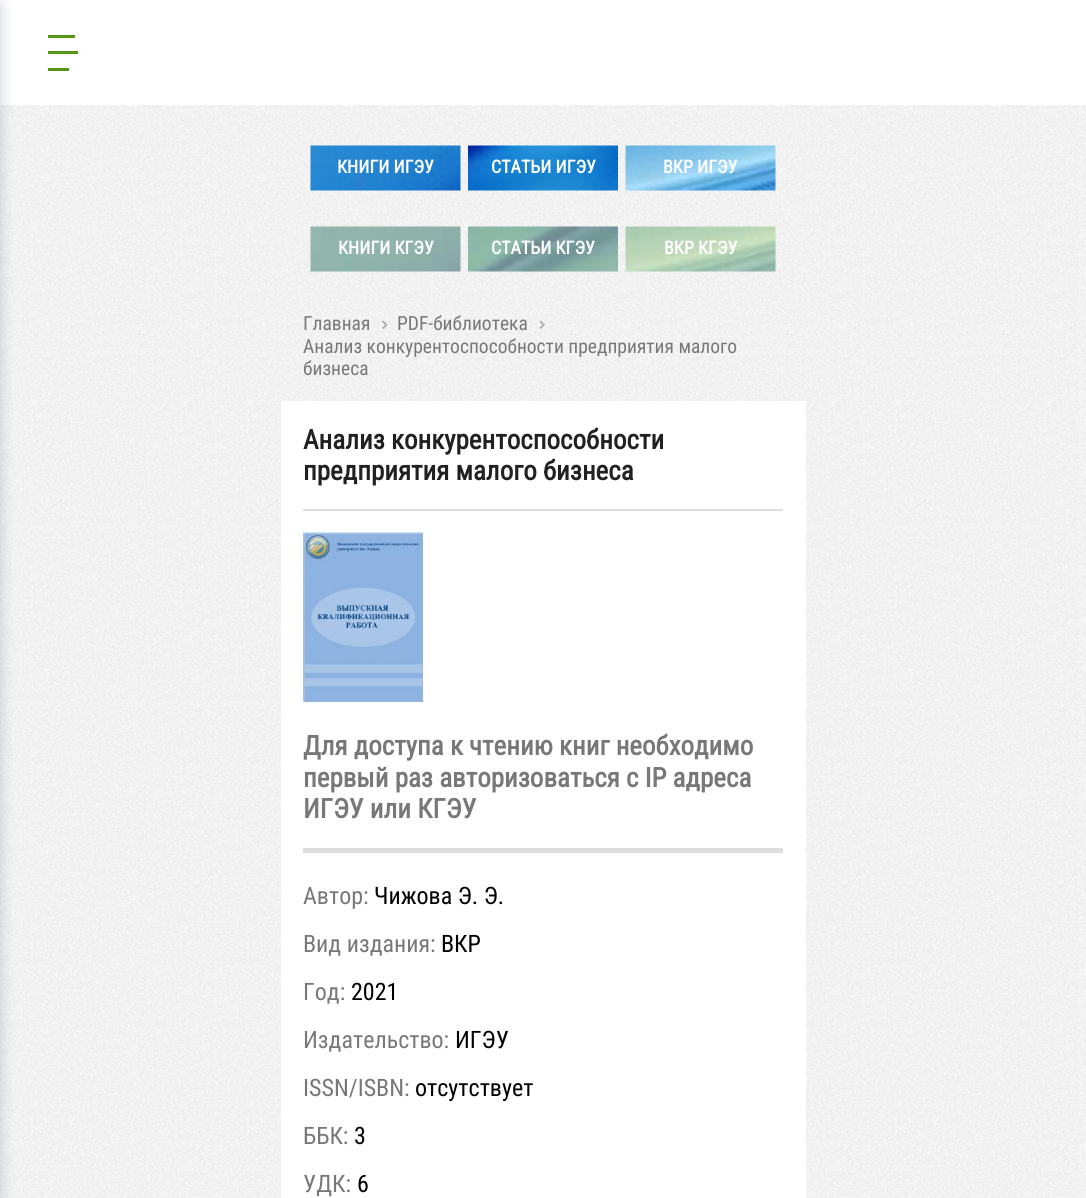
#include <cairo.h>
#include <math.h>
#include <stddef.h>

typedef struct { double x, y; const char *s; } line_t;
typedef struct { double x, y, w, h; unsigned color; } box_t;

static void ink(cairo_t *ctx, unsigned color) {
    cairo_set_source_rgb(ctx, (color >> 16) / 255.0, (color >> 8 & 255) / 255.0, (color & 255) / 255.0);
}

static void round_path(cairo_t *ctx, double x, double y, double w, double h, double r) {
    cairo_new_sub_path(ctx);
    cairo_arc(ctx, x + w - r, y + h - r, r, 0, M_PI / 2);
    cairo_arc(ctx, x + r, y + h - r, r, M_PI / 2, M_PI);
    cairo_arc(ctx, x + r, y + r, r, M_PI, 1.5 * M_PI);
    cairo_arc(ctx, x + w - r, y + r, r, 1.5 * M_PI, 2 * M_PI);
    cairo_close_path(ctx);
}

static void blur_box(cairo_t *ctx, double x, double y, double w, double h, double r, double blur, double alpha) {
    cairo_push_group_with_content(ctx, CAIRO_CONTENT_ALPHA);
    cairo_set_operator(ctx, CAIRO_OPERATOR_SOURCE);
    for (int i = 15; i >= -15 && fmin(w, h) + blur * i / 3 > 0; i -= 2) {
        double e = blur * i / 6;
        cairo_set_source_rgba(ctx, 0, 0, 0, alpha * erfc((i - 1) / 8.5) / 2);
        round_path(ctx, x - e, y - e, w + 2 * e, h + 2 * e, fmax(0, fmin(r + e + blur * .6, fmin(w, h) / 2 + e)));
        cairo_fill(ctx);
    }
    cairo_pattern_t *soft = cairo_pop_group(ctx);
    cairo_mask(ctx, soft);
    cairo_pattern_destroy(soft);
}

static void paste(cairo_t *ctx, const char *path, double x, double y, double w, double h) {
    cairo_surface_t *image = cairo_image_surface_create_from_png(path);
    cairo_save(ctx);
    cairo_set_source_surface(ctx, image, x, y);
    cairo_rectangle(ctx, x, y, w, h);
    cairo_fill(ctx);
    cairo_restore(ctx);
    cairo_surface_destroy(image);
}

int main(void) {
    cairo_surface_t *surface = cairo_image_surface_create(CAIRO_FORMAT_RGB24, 1086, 1198);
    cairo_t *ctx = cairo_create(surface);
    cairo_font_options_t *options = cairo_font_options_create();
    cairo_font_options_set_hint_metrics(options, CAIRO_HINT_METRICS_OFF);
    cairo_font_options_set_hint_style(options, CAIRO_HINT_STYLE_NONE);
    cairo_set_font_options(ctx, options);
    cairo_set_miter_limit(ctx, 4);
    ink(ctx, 0xFFFFFF);
    cairo_paint(ctx);
    paste(ctx, "media/1.png", 0, 105, 1086, 1093);
    ink(ctx, 0x545F79);
    blur_box(ctx, -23, 5, 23, 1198, 0, 7.5, 0.3);
    {
        static const box_t items[] = {
            {48, 35, 27, 3, 0x569414},
            {48, 51, 30, 3, 0x569414},
            {48, 68, 21, 3, 0x569414},
        };
        for (size_t i = 0; i < sizeof items / sizeof *items; i++) {
            ink(ctx, items[i].color);
            cairo_rectangle(ctx, items[i].x, items[i].y, items[i].w, items[i].h);
            cairo_fill(ctx);
        }
    }
    paste(ctx, "media/2.png", 310, 145, 151, 46);
    cairo_select_font_face(ctx, "Roboto Condensed", CAIRO_FONT_SLANT_NORMAL, CAIRO_FONT_WEIGHT_BOLD);
    cairo_set_font_size(ctx, 18);
    ink(ctx, 0xFFFFFF);
    cairo_move_to(ctx, 337, 173);
    cairo_show_text(ctx, "КНИГИ ИГЭУ");
    paste(ctx, "media/3.png", 468, 145, 150, 46);
    cairo_move_to(ctx, 491, 173);
    cairo_show_text(ctx, "СТАТЬИ ИГЭУ");
    paste(ctx, "media/4.png", 625, 145, 151, 46);
    cairo_move_to(ctx, 663, 173);
    cairo_show_text(ctx, "ВКР ИГЭУ");
    paste(ctx, "media/5.png", 310, 226, 151, 46);
    cairo_move_to(ctx, 338, 254);
    cairo_show_text(ctx, "КНИГИ КГЭУ");
    paste(ctx, "media/6.png", 468, 226, 150, 46);
    cairo_move_to(ctx, 491, 254);
    cairo_show_text(ctx, "СТАТЬИ КГЭУ");
    paste(ctx, "media/7.png", 625, 226, 151, 46);
    cairo_move_to(ctx, 664, 254);
    cairo_show_text(ctx, "ВКР КГЭУ");
    cairo_select_font_face(ctx, "Roboto Condensed", CAIRO_FONT_SLANT_NORMAL, CAIRO_FONT_WEIGHT_NORMAL);
    cairo_set_font_size(ctx, 19.5);
    ink(ctx, 0x787878);
    cairo_move_to(ctx, 303, 330);
    cairo_show_text(ctx, "Главная");
    paste(ctx, "media/8.png", 382, 320, 6, 9);
    cairo_move_to(ctx, 397, 330);
    cairo_show_text(ctx, "PDF-библиотека");
    paste(ctx, "media/9.png", 539, 320, 6, 9);
    cairo_move_to(ctx, 303, 353);
    cairo_show_text(ctx, "Анализ конкурентоспособности предприятия малого");
    cairo_move_to(ctx, 303, 375);
    cairo_show_text(ctx, "бизнеса");
    ink(ctx, 0xFFFFFF);
    cairo_rectangle(ctx, 281, 401, 525, 797);
    cairo_fill(ctx);
    ink(ctx, 0xDEDEDE);
    cairo_rectangle(ctx, 303, 509, 480, 2);
    cairo_fill(ctx);
    cairo_select_font_face(ctx, "Roboto Condensed", CAIRO_FONT_SLANT_NORMAL, CAIRO_FONT_WEIGHT_BOLD);
    cairo_set_font_size(ctx, 27);
    ink(ctx, 0x212121);
    cairo_move_to(ctx, 303, 449);
    cairo_show_text(ctx, "Анализ конкурентоспособности");
    cairo_move_to(ctx, 303, 480);
    cairo_show_text(ctx, "предприятия малого бизнеса");
    paste(ctx, "media/10.png", 303, 532, 120, 170);
    ink(ctx, 0xDEDEDE);
    cairo_rectangle(ctx, 303, 848, 480, 5);
    cairo_fill(ctx);
    ink(ctx, 0x787878);
    {
        static const line_t items[] = {
            {303, 755, "Для доступа к чтению книг необходимо"},
            {303, 787, "первый раз авторизоваться с IP адреса"},
            {303, 818, "ИГЭУ или КГЭУ"},
        };
        for (size_t i = 0; i < sizeof items / sizeof *items; i++) {
            cairo_move_to(ctx, items[i].x, items[i].y);
            cairo_show_text(ctx, items[i].s);
        }
    }
    cairo_select_font_face(ctx, "Roboto Condensed", CAIRO_FONT_SLANT_NORMAL, CAIRO_FONT_WEIGHT_NORMAL);
    cairo_set_font_size(ctx, 24);
    cairo_move_to(ctx, 303, 904);
    cairo_show_text(ctx, "Автор:");
    ink(ctx, 0x000000);
    cairo_move_to(ctx, 374, 904);
    cairo_show_text(ctx, "Чижова Э. Э.");
    ink(ctx, 0x787878);
    cairo_move_to(ctx, 303, 952);
    cairo_show_text(ctx, "Вид издания:");
    ink(ctx, 0x000000);
    cairo_move_to(ctx, 441, 952);
    cairo_show_text(ctx, "ВКР");
    ink(ctx, 0x787878);
    cairo_move_to(ctx, 303, 1000);
    cairo_show_text(ctx, "Год:");
    ink(ctx, 0x000000);
    cairo_move_to(ctx, 351, 1000);
    cairo_show_text(ctx, "2021");
    ink(ctx, 0x787878);
    cairo_move_to(ctx, 303, 1048);
    cairo_show_text(ctx, "Издательство:");
    ink(ctx, 0x000000);
    cairo_move_to(ctx, 455, 1048);
    cairo_show_text(ctx, "ИГЭУ");
    ink(ctx, 0x787878);
    cairo_move_to(ctx, 303, 1096);
    cairo_show_text(ctx, "ISSN/ISBN:");
    ink(ctx, 0x000000);
    cairo_move_to(ctx, 415, 1096);
    cairo_show_text(ctx, "отсутствует");
    ink(ctx, 0x787878);
    cairo_move_to(ctx, 303, 1144);
    cairo_show_text(ctx, "ББК:");
    ink(ctx, 0x000000);
    cairo_move_to(ctx, 354, 1144);
    cairo_show_text(ctx, "3");
    ink(ctx, 0x787878);
    cairo_move_to(ctx, 303, 1192);
    cairo_show_text(ctx, "УДК:");
    ink(ctx, 0x000000);
    cairo_move_to(ctx, 357, 1192);
    cairo_show_text(ctx, "6");
    cairo_surface_write_to_png(surface, "image.png");
    cairo_font_options_destroy(options);
    cairo_destroy(ctx);
    cairo_surface_destroy(surface);
    return 0;
}
